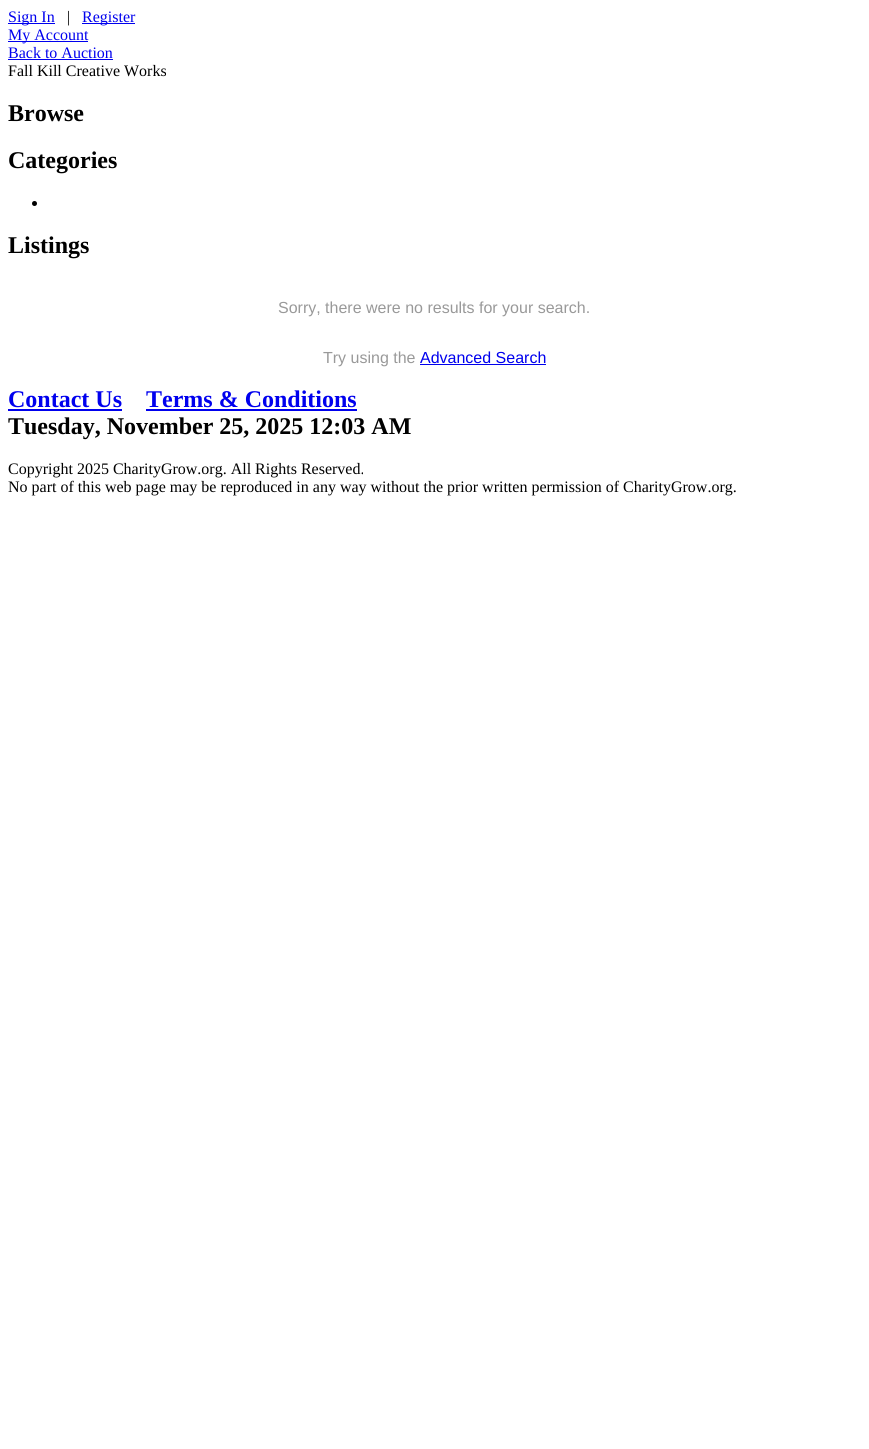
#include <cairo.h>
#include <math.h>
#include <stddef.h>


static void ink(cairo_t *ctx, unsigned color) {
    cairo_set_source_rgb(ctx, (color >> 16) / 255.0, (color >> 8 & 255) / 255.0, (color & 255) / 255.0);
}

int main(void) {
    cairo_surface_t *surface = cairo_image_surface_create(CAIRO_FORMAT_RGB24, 869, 1449);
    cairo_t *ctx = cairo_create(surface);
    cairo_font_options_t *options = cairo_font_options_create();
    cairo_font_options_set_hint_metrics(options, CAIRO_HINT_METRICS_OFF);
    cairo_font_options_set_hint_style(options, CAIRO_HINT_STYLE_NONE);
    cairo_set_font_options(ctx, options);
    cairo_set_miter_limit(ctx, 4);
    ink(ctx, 0xFFFFFF);
    cairo_paint(ctx);
    ink(ctx, 0x0000EE);
    cairo_rectangle(ctx, 8, 23, 47, 1);
    cairo_fill(ctx);
    cairo_select_font_face(ctx, "Liberation Serif", CAIRO_FONT_SLANT_NORMAL, CAIRO_FONT_WEIGHT_NORMAL);
    cairo_set_font_size(ctx, 16);
    cairo_move_to(ctx, 8, 22);
    cairo_show_text(ctx, "Sign In");
    ink(ctx, 0x000000);
    cairo_move_to(ctx, 67, 22);
    cairo_show_text(ctx, "|");
    ink(ctx, 0x0000EE);
    cairo_rectangle(ctx, 82, 23, 53, 1);
    cairo_fill(ctx);
    cairo_move_to(ctx, 82, 22);
    cairo_show_text(ctx, "Register");
    cairo_rectangle(ctx, 8, 41, 80, 1);
    cairo_fill(ctx);
    cairo_move_to(ctx, 8, 40);
    cairo_show_text(ctx, "My Account");
    cairo_move_to(ctx, 8, 58);
    cairo_show_text(ctx, "Back to Auction");
    cairo_rectangle(ctx, 8, 59, 105, 1);
    cairo_fill(ctx);
    ink(ctx, 0x000000);
    cairo_move_to(ctx, 8, 76);
    cairo_show_text(ctx, "Fall Kill Creative Works");
    cairo_select_font_face(ctx, "Liberation Serif", CAIRO_FONT_SLANT_NORMAL, CAIRO_FONT_WEIGHT_BOLD);
    cairo_set_font_size(ctx, 24);
    cairo_move_to(ctx, 8, 121);
    cairo_show_text(ctx, "Browse");
    cairo_move_to(ctx, 8, 168);
    cairo_show_text(ctx, "Categories");
    cairo_new_path(ctx);
    cairo_arc(ctx, 34.5, 203.5, 2.5, 0, 2 * M_PI);
    cairo_fill(ctx);
    cairo_move_to(ctx, 8, 253);
    cairo_show_text(ctx, "Listings");
    cairo_select_font_face(ctx, "Liberation Sans", CAIRO_FONT_SLANT_NORMAL, CAIRO_FONT_WEIGHT_NORMAL);
    cairo_set_font_size(ctx, 16);
    ink(ctx, 0x999999);
    cairo_move_to(ctx, 278, 313);
    cairo_show_text(ctx, "Sorry, there were no results for your search.");
    cairo_move_to(ctx, 323, 363);
    cairo_show_text(ctx, "Try using the");
    ink(ctx, 0x0000EE);
    cairo_move_to(ctx, 420, 363);
    cairo_show_text(ctx, "Advanced Search");
    cairo_rectangle(ctx, 420, 364, 126, 1);
    cairo_fill(ctx);
    cairo_select_font_face(ctx, "Liberation Serif", CAIRO_FONT_SLANT_NORMAL, CAIRO_FONT_WEIGHT_BOLD);
    cairo_set_font_size(ctx, 24);
    cairo_move_to(ctx, 8, 407);
    cairo_show_text(ctx, "Contact Us");
    cairo_rectangle(ctx, 8, 409, 114, 2);
    cairo_fill(ctx);
    cairo_move_to(ctx, 146, 407);
    cairo_show_text(ctx, "Terms & Conditions");
    cairo_rectangle(ctx, 146, 409, 211, 2);
    cairo_fill(ctx);
    ink(ctx, 0x000000);
    cairo_move_to(ctx, 8, 434);
    cairo_show_text(ctx, "Tuesday, November 25, 2025 12:03 AM");
    cairo_select_font_face(ctx, "Liberation Serif", CAIRO_FONT_SLANT_NORMAL, CAIRO_FONT_WEIGHT_NORMAL);
    cairo_set_font_size(ctx, 16);
    cairo_move_to(ctx, 8, 474);
    cairo_show_text(ctx, "Copyright 2025 CharityGrow.org. All Rights Reserved.");
    cairo_move_to(ctx, 8, 492);
    cairo_show_text(ctx, "No part of this web page may be reproduced in any way without the prior written permission of CharityGrow.org.");
    cairo_surface_write_to_png(surface, "image.png");
    cairo_font_options_destroy(options);
    cairo_destroy(ctx);
    cairo_surface_destroy(surface);
    return 0;
}
